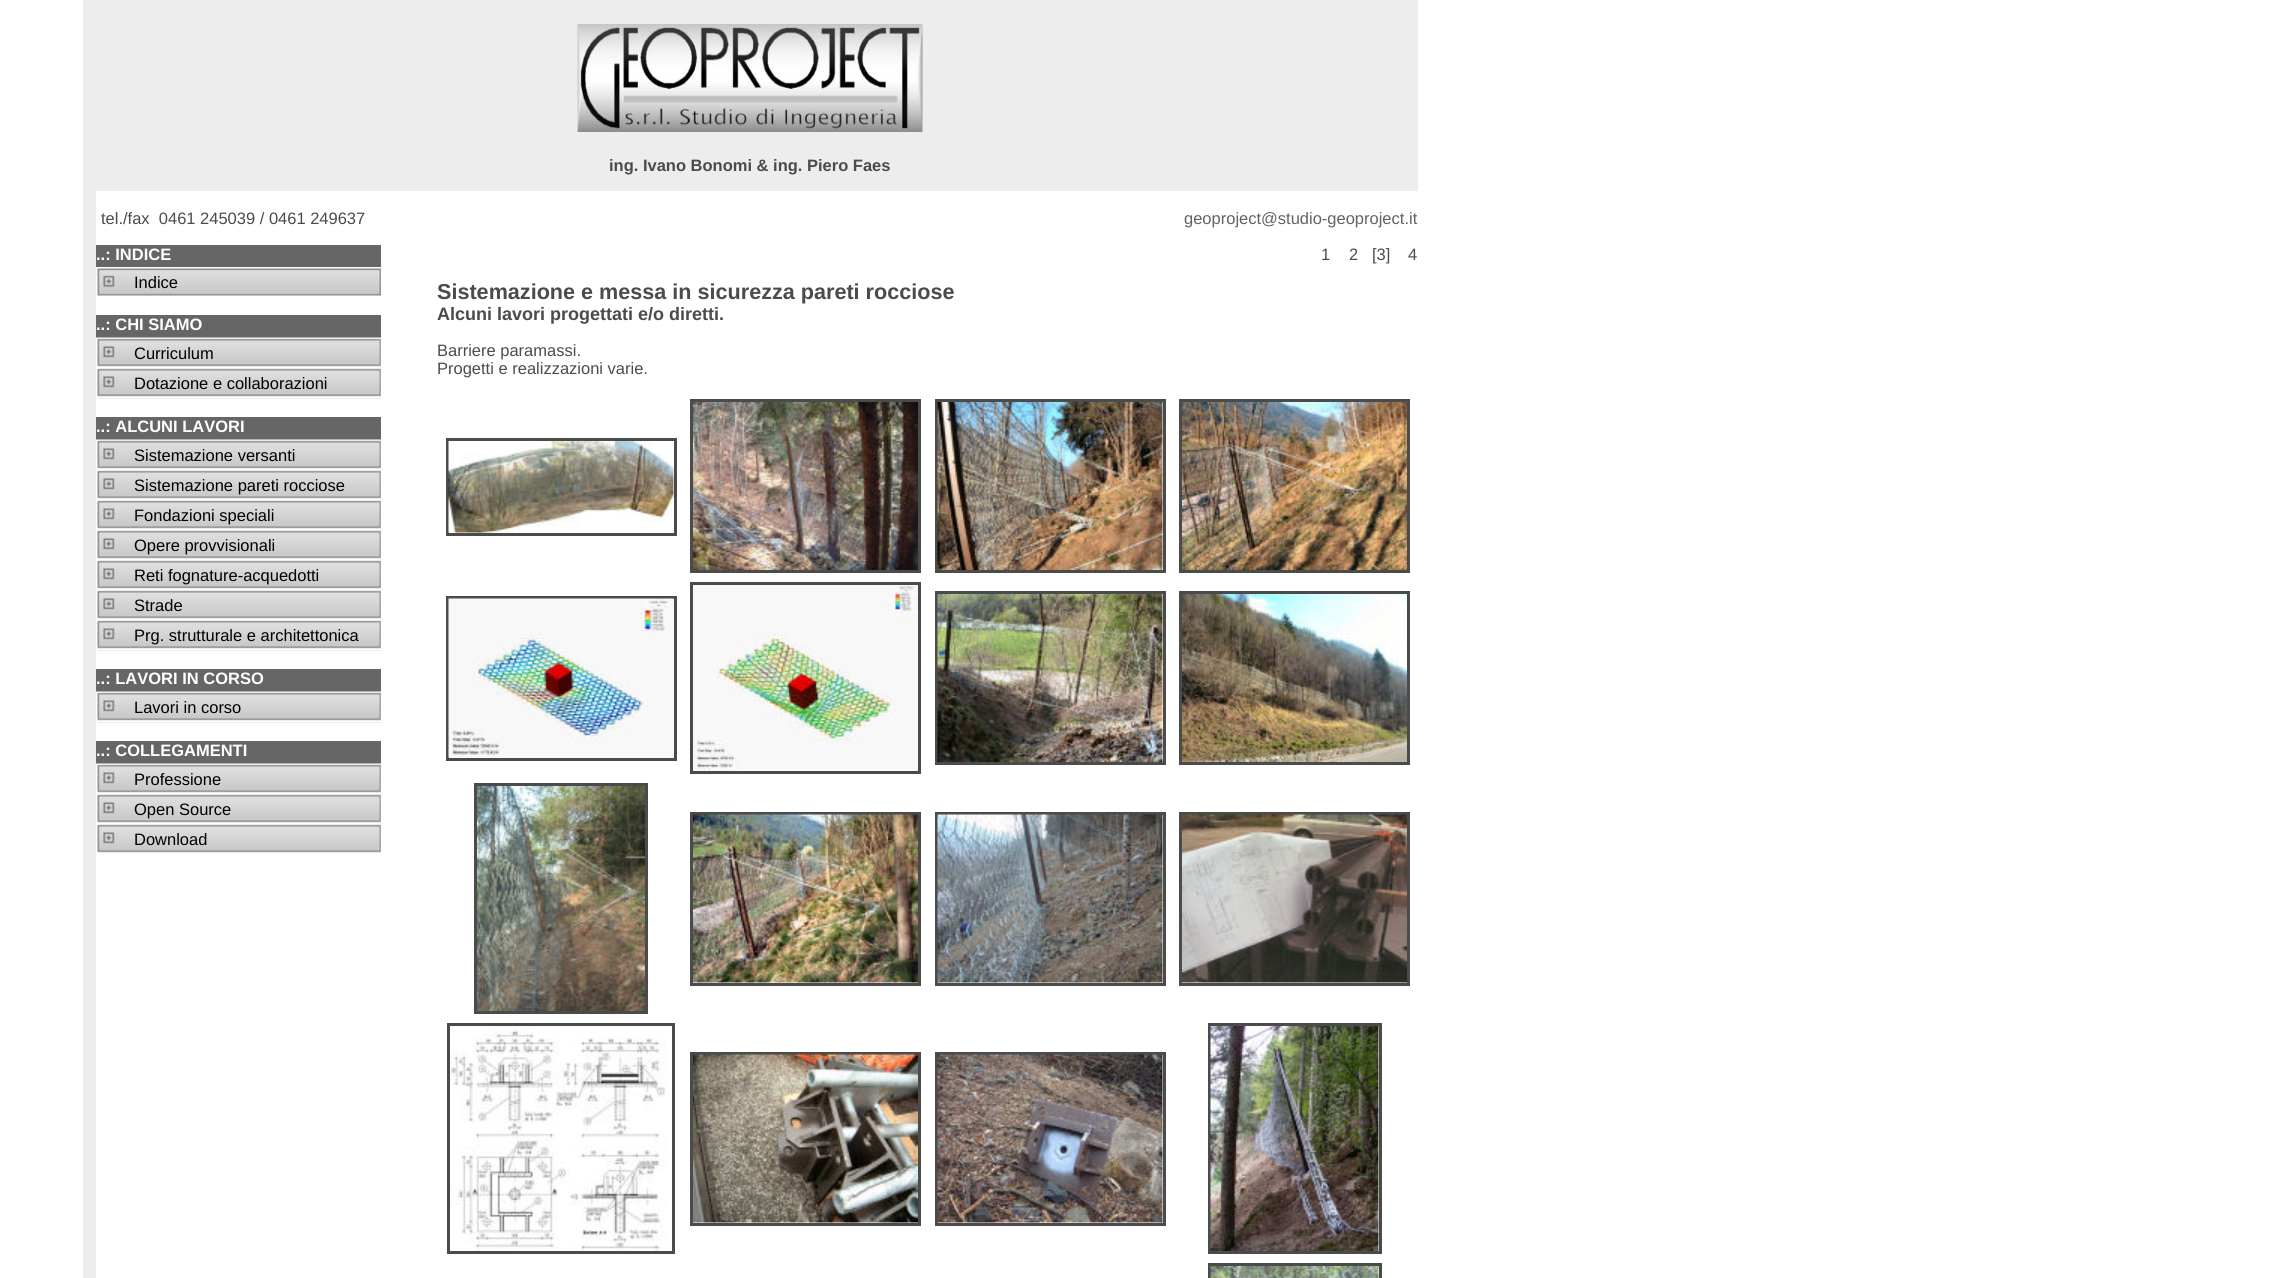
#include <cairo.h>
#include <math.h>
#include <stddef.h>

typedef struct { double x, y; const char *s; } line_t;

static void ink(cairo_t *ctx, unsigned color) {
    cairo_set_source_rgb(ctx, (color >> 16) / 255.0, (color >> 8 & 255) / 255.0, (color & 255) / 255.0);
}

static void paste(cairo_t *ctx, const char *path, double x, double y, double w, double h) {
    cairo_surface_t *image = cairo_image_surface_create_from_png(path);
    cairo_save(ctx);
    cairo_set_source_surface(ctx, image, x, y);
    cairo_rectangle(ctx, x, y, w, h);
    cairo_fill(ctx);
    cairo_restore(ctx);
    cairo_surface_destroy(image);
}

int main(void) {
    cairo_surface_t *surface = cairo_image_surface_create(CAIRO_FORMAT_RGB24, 2279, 1278);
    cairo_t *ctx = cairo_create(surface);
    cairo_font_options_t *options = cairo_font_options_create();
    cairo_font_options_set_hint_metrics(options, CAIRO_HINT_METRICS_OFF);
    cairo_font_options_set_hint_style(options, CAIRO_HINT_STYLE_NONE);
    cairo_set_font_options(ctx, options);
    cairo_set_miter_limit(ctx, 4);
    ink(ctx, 0xFFFFFF);
    cairo_paint(ctx);
    ink(ctx, 0xEDEDED);
    cairo_rectangle(ctx, 83, 0, 1335, 191);
    cairo_fill(ctx);
    paste(ctx, "media/1.png", 577, 24, 346, 108);
    cairo_select_font_face(ctx, "Liberation Sans", CAIRO_FONT_SLANT_NORMAL, CAIRO_FONT_WEIGHT_BOLD);
    cairo_set_font_size(ctx, 16.5);
    ink(ctx, 0x4B4B4B);
    cairo_move_to(ctx, 609, 171);
    cairo_show_text(ctx, "ing. Ivano Bonomi & ing. Piero Faes");
    ink(ctx, 0xEDEDED);
    cairo_rectangle(ctx, 83, 191, 13, 1087);
    cairo_fill(ctx);
    cairo_select_font_face(ctx, "Liberation Sans", CAIRO_FONT_SLANT_NORMAL, CAIRO_FONT_WEIGHT_NORMAL);
    ink(ctx, 0x4B4B4B);
    cairo_move_to(ctx, 101, 224);
    cairo_show_text(ctx, "tel./fax  0461 245039 / 0461 249637");
    ink(ctx, 0x626262);
    cairo_move_to(ctx, 1184, 224);
    cairo_show_text(ctx, "geoproject@studio-geoproject.it");
    ink(ctx, 0x666666);
    cairo_rectangle(ctx, 96, 245, 285, 22);
    cairo_fill(ctx);
    cairo_select_font_face(ctx, "Liberation Sans", CAIRO_FONT_SLANT_NORMAL, CAIRO_FONT_WEIGHT_BOLD);
    ink(ctx, 0xFFFFFF);
    cairo_move_to(ctx, 96, 260);
    cairo_show_text(ctx, "..: INDICE");
    paste(ctx, "media/2.png", 97, 268, 284, 28);
    cairo_select_font_face(ctx, "Liberation Sans", CAIRO_FONT_SLANT_NORMAL, CAIRO_FONT_WEIGHT_NORMAL);
    ink(ctx, 0x000000);
    cairo_move_to(ctx, 134, 288);
    cairo_show_text(ctx, "Indice");
    ink(ctx, 0x666666);
    cairo_rectangle(ctx, 96, 315, 285, 23);
    cairo_fill(ctx);
    cairo_select_font_face(ctx, "Liberation Sans", CAIRO_FONT_SLANT_NORMAL, CAIRO_FONT_WEIGHT_BOLD);
    ink(ctx, 0xFFFFFF);
    cairo_move_to(ctx, 96, 330);
    cairo_show_text(ctx, "..: CHI SIAMO");
    paste(ctx, "media/3.png", 96, 337, 285, 62);
    cairo_select_font_face(ctx, "Liberation Sans", CAIRO_FONT_SLANT_NORMAL, CAIRO_FONT_WEIGHT_NORMAL);
    ink(ctx, 0x000000);
    cairo_move_to(ctx, 134, 359);
    cairo_show_text(ctx, "Curriculum");
    cairo_move_to(ctx, 134, 389);
    cairo_show_text(ctx, "Dotazione e collaborazioni");
    ink(ctx, 0x666666);
    cairo_rectangle(ctx, 96, 417, 285, 23);
    cairo_fill(ctx);
    cairo_select_font_face(ctx, "Liberation Sans", CAIRO_FONT_SLANT_NORMAL, CAIRO_FONT_WEIGHT_BOLD);
    ink(ctx, 0xFFFFFF);
    cairo_move_to(ctx, 96, 432);
    cairo_show_text(ctx, "..: ALCUNI LAVORI");
    paste(ctx, "media/4.png", 96, 439, 285, 212);
    cairo_select_font_face(ctx, "Liberation Sans", CAIRO_FONT_SLANT_NORMAL, CAIRO_FONT_WEIGHT_NORMAL);
    ink(ctx, 0x000000);
    {
        static const line_t items[] = {
            {134, 461, "Sistemazione versanti"},
            {134, 491, "Sistemazione pareti rocciose"},
            {134, 521, "Fondazioni speciali"},
            {134, 551, "Opere provvisionali"},
            {134, 581, "Reti fognature-acquedotti"},
            {134, 611, "Strade"},
            {134, 641, "Prg. strutturale e architettonica"},
        };
        for (size_t i = 0; i < sizeof items / sizeof *items; i++) {
            cairo_move_to(ctx, items[i].x, items[i].y);
            cairo_show_text(ctx, items[i].s);
        }
    }
    ink(ctx, 0x666666);
    cairo_rectangle(ctx, 96, 669, 285, 23);
    cairo_fill(ctx);
    cairo_select_font_face(ctx, "Liberation Sans", CAIRO_FONT_SLANT_NORMAL, CAIRO_FONT_WEIGHT_BOLD);
    ink(ctx, 0xFFFFFF);
    cairo_move_to(ctx, 96, 684);
    cairo_show_text(ctx, "..: LAVORI IN CORSO");
    paste(ctx, "media/5.png", 96, 691, 285, 32);
    cairo_select_font_face(ctx, "Liberation Sans", CAIRO_FONT_SLANT_NORMAL, CAIRO_FONT_WEIGHT_NORMAL);
    ink(ctx, 0x000000);
    cairo_move_to(ctx, 134, 713);
    cairo_show_text(ctx, "Lavori in corso");
    ink(ctx, 0x666666);
    cairo_rectangle(ctx, 96, 741, 285, 23);
    cairo_fill(ctx);
    cairo_select_font_face(ctx, "Liberation Sans", CAIRO_FONT_SLANT_NORMAL, CAIRO_FONT_WEIGHT_BOLD);
    ink(ctx, 0xFFFFFF);
    cairo_move_to(ctx, 96, 756);
    cairo_show_text(ctx, "..: COLLEGAMENTI");
    paste(ctx, "media/6.png", 96, 763, 285, 90);
    cairo_select_font_face(ctx, "Liberation Sans", CAIRO_FONT_SLANT_NORMAL, CAIRO_FONT_WEIGHT_NORMAL);
    ink(ctx, 0x000000);
    {
        static const line_t items[] = {
            {134, 785, "Professione"},
            {134, 815, "Open Source"},
            {134, 845, "Download"},
        };
        for (size_t i = 0; i < sizeof items / sizeof *items; i++) {
            cairo_move_to(ctx, items[i].x, items[i].y);
            cairo_show_text(ctx, items[i].s);
        }
    }
    ink(ctx, 0x4B4B4B);
    {
        static const line_t items[] = {
            {1321, 260, "1"},
            {1349, 260, "2"},
            {1372, 260, "[3]"},
            {1408, 260, "4"},
        };
        for (size_t i = 0; i < sizeof items / sizeof *items; i++) {
            cairo_move_to(ctx, items[i].x, items[i].y);
            cairo_show_text(ctx, items[i].s);
        }
    }
    cairo_select_font_face(ctx, "Liberation Sans", CAIRO_FONT_SLANT_NORMAL, CAIRO_FONT_WEIGHT_BOLD);
    cairo_set_font_size(ctx, 21.6);
    cairo_move_to(ctx, 437, 299);
    cairo_show_text(ctx, "Sistemazione e messa in sicurezza pareti rocciose");
    cairo_set_font_size(ctx, 18);
    cairo_move_to(ctx, 437, 320);
    cairo_show_text(ctx, "Alcuni lavori progettati e/o diretti.");
    cairo_select_font_face(ctx, "Liberation Sans", CAIRO_FONT_SLANT_NORMAL, CAIRO_FONT_WEIGHT_NORMAL);
    cairo_set_font_size(ctx, 16.5);
    cairo_move_to(ctx, 437, 356);
    cairo_show_text(ctx, "Barriere paramassi.");
    cairo_move_to(ctx, 437, 374);
    cairo_show_text(ctx, "Progetti e realizzazioni varie.");
    cairo_rectangle(ctx, 447.5, 439.5, 228, 95);
    cairo_set_line_width(ctx, 3);
    cairo_stroke(ctx);
    paste(ctx, "media/7.png", 448, 441, 226, 92);
    cairo_rectangle(ctx, 691.5, 400.5, 228, 171);
    cairo_stroke(ctx);
    paste(ctx, "media/8.png", 693, 402, 225, 168);
    cairo_rectangle(ctx, 936.5, 400.5, 228, 171);
    cairo_stroke(ctx);
    paste(ctx, "media/9.png", 937, 402, 226, 168);
    cairo_rectangle(ctx, 1180.5, 400.5, 228, 171);
    cairo_stroke(ctx);
    paste(ctx, "media/10.png", 1182, 402, 225, 168);
    cairo_rectangle(ctx, 447.5, 597.5, 228, 162);
    cairo_stroke(ctx);
    paste(ctx, "media/11.png", 448, 598, 226, 160);
    cairo_rectangle(ctx, 691.5, 583.5, 228, 189);
    cairo_stroke(ctx);
    paste(ctx, "media/12.png", 693, 585, 225, 186);
    cairo_rectangle(ctx, 936.5, 592.5, 228, 171);
    cairo_stroke(ctx);
    paste(ctx, "media/13.png", 937, 594, 226, 168);
    cairo_rectangle(ctx, 1180.5, 592.5, 228, 171);
    cairo_stroke(ctx);
    paste(ctx, "media/14.png", 1182, 594, 225, 168);
    cairo_rectangle(ctx, 475.5, 784.5, 171, 228);
    cairo_stroke(ctx);
    paste(ctx, "media/15.png", 477, 786, 168, 225);
    cairo_rectangle(ctx, 691.5, 813.5, 228, 171);
    cairo_stroke(ctx);
    paste(ctx, "media/16.png", 693, 814, 225, 169);
    cairo_rectangle(ctx, 936.5, 813.5, 228, 171);
    cairo_stroke(ctx);
    paste(ctx, "media/17.png", 937, 814, 226, 169);
    cairo_rectangle(ctx, 1180.5, 813.5, 228, 171);
    cairo_stroke(ctx);
    paste(ctx, "media/18.png", 1182, 814, 225, 169);
    cairo_rectangle(ctx, 448.5, 1024.5, 225, 228);
    cairo_stroke(ctx);
    paste(ctx, "media/19.png", 450, 1026, 216, 225);
    cairo_rectangle(ctx, 691.5, 1053.5, 228, 171);
    cairo_stroke(ctx);
    paste(ctx, "media/20.png", 693, 1054, 225, 169);
    cairo_rectangle(ctx, 936.5, 1053.5, 228, 171);
    cairo_stroke(ctx);
    paste(ctx, "media/21.png", 937, 1054, 226, 169);
    cairo_rectangle(ctx, 1209.5, 1024.5, 171, 228);
    cairo_stroke(ctx);
    paste(ctx, "media/22.png", 1210, 1026, 169, 225);
    cairo_rectangle(ctx, 1209.5, 1264.5, 171, 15);
    cairo_stroke(ctx);
    paste(ctx, "media/23.png", 1210, 1266, 169, 12);
    cairo_surface_write_to_png(surface, "image.png");
    cairo_font_options_destroy(options);
    cairo_destroy(ctx);
    cairo_surface_destroy(surface);
    return 0;
}
